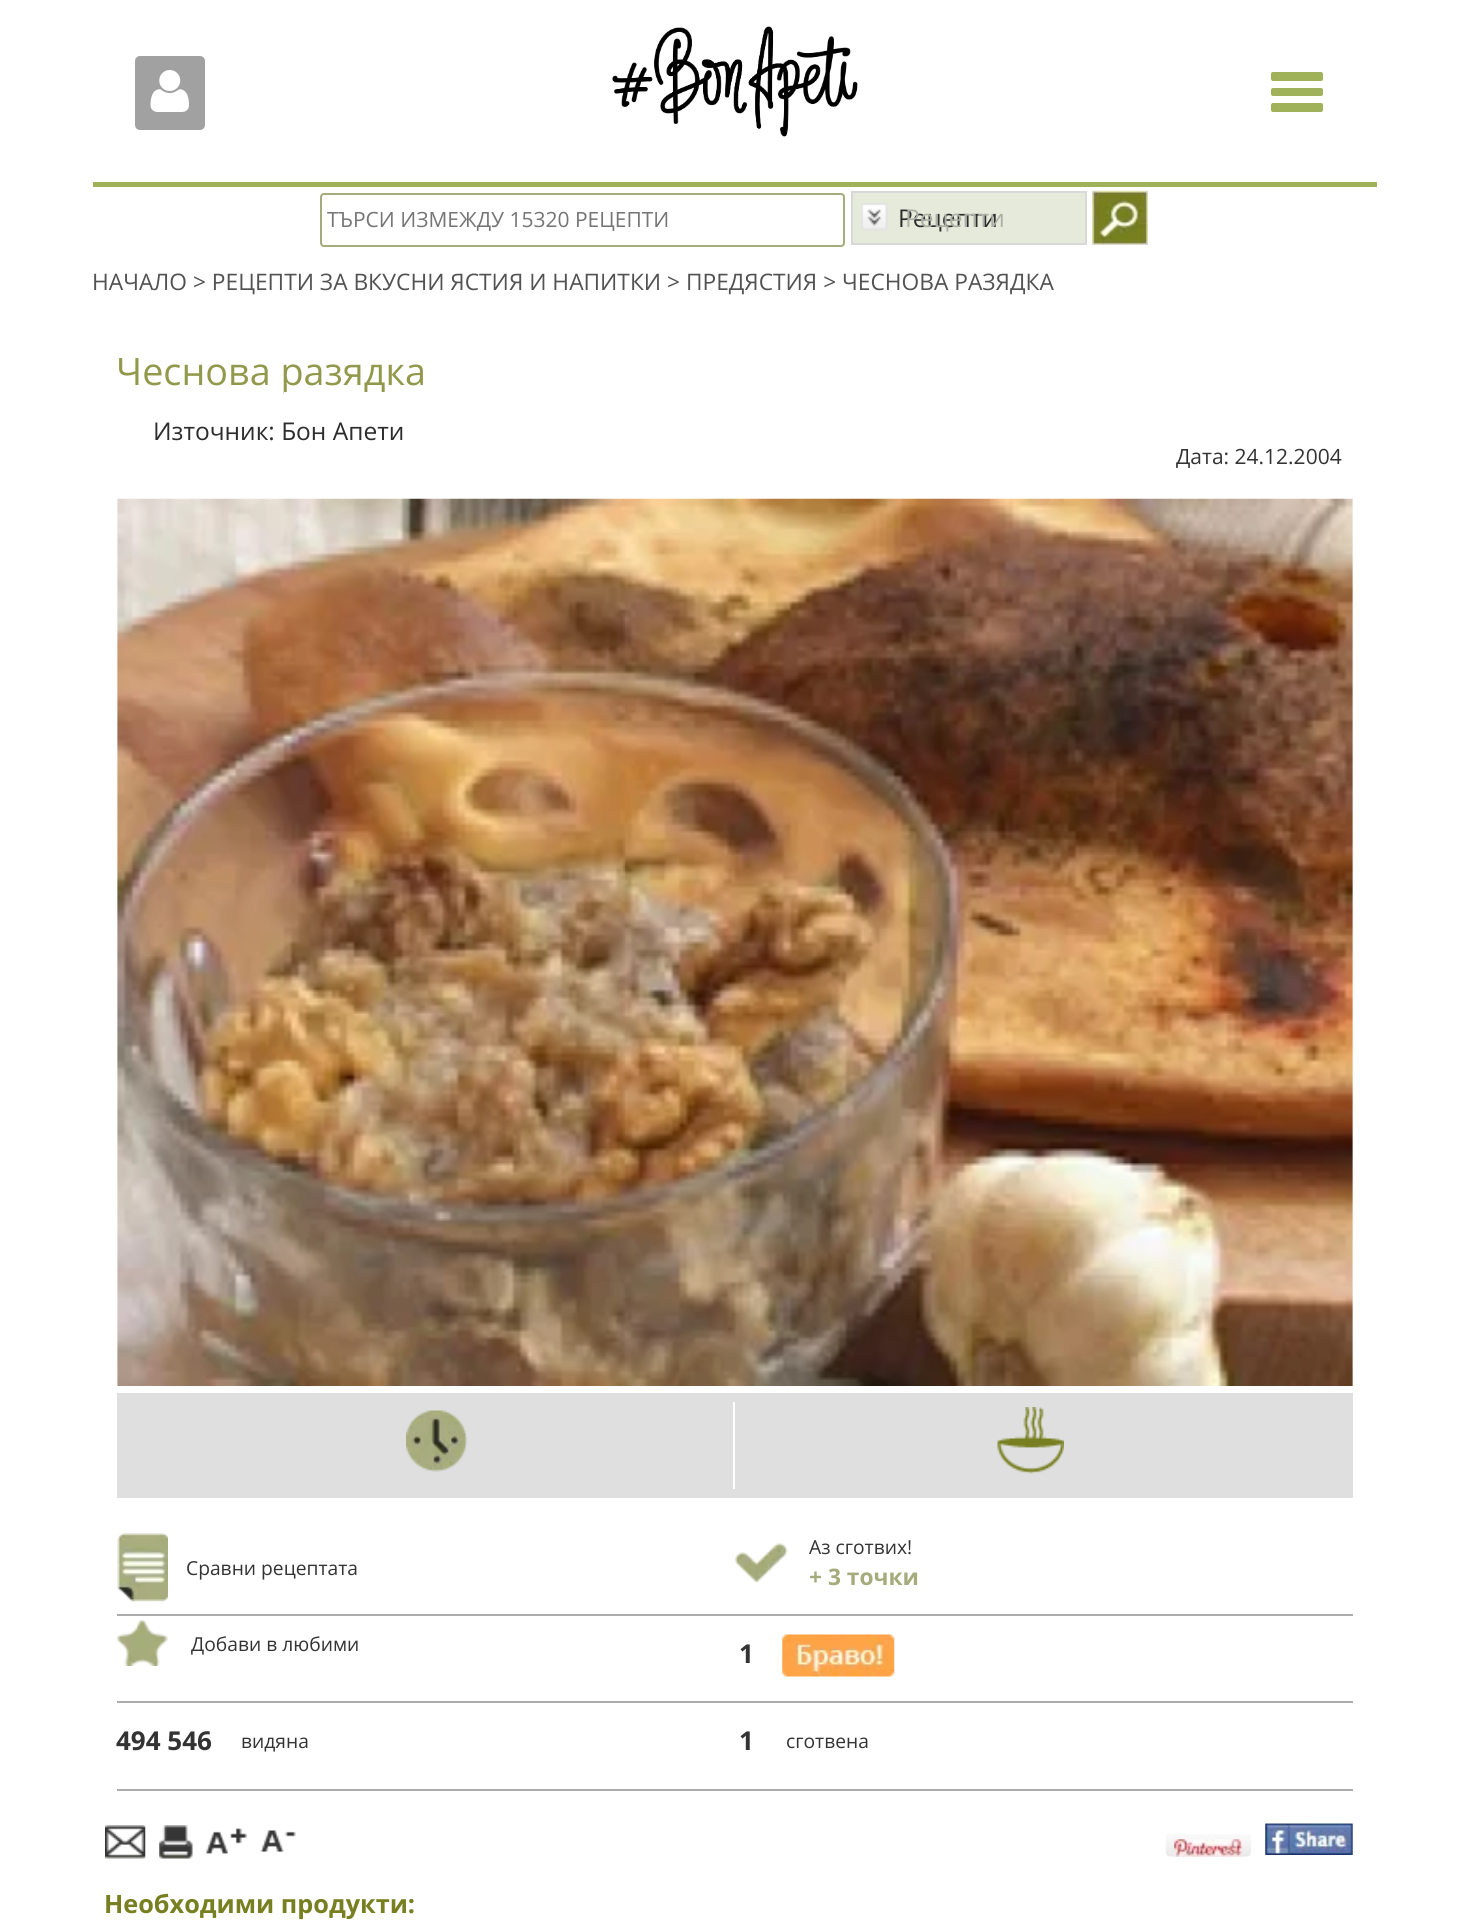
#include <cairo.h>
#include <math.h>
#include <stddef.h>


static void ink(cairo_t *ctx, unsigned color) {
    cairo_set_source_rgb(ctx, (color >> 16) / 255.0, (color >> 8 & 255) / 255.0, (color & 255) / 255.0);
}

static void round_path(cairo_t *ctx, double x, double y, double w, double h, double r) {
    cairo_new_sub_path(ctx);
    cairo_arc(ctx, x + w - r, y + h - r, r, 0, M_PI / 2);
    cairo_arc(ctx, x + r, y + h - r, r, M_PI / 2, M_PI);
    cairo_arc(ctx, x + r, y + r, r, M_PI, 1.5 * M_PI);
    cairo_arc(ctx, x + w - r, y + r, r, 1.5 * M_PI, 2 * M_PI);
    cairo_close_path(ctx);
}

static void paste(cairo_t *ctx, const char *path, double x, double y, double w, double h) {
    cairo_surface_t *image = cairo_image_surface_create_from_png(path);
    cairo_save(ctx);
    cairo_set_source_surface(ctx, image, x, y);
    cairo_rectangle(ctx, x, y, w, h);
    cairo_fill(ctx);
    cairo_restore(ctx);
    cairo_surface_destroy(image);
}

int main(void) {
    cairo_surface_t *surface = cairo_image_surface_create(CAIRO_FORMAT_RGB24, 1468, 1932);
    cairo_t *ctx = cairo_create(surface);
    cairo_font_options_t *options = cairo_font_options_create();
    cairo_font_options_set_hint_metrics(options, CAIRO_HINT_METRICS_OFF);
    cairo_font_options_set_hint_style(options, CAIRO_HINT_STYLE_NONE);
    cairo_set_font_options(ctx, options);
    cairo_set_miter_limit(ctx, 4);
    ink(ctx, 0xFFFFFF);
    cairo_paint(ctx);
    ink(ctx, 0xA1A1A1);
    round_path(ctx, 135, 56, 70, 74, 5);
    cairo_fill(ctx);
    paste(ctx, "media/1.png", 150, 70, 39, 42);
    paste(ctx, "media/2.png", 612, 26, 246, 111);
    ink(ctx, 0x9FB25A);
    round_path(ctx, 1271, 72, 52, 9, 2);
    cairo_fill(ctx);
    round_path(ctx, 1271, 88, 52, 8, 2);
    cairo_fill(ctx);
    round_path(ctx, 1271, 103, 52, 9, 2);
    cairo_fill(ctx);
    cairo_rectangle(ctx, 93, 182, 1284, 5);
    cairo_fill(ctx);
    ink(ctx, 0xE6EADB);
    cairo_rectangle(ctx, 853, 193, 232, 50);
    cairo_fill(ctx);
    paste(ctx, "media/3.png", 861, 203, 27, 28);
    cairo_rectangle(ctx, 852, 192, 234, 52);
    ink(ctx, 0xD8D8D8);
    cairo_stroke(ctx);
    cairo_select_font_face(ctx, "Open Sans", CAIRO_FONT_SLANT_NORMAL, CAIRO_FONT_WEIGHT_NORMAL);
    cairo_set_font_size(ctx, 24.5);
    ink(ctx, 0x2D2D2D);
    cairo_move_to(ctx, 898, 227);
    cairo_show_text(ctx, "Рецепти");
    paste(ctx, "media/4.png", 1092, 190, 56, 55);
    round_path(ctx, 321, 194, 523, 52, 3);
    ink(ctx, 0xA5AB7B);
    cairo_stroke(ctx);
    cairo_set_font_size(ctx, 21);
    ink(ctx, 0x757575);
    cairo_move_to(ctx, 327, 227);
    cairo_show_text(ctx, "ТЪРСИ ИЗМЕЖДУ 15320 РЕЦЕПТИ");
    cairo_set_font_size(ctx, 24.5);
    ink(ctx, 0xADB0A6);
    cairo_move_to(ctx, 905, 227);
    cairo_show_text(ctx, "Рецепти");
    cairo_set_font_size(ctx, 22.75);
    ink(ctx, 0x525252);
    cairo_move_to(ctx, 92, 290);
    cairo_show_text(ctx, "НАЧАЛО > РЕЦЕПТИ ЗА ВКУСНИ ЯСТИЯ И НАПИТКИ > ПРЕДЯСТИЯ > ЧЕСНОВА РАЗЯДКА");
    cairo_set_font_size(ctx, 37.75);
    ink(ctx, 0x92994C);
    cairo_move_to(ctx, 116, 385);
    cairo_show_text(ctx, "Чеснова разядка");
    ink(ctx, 0xFFFFFF);
    cairo_rectangle(ctx, 284, 392, 4, 3);
    cairo_fill(ctx);
    cairo_set_font_size(ctx, 24.5);
    ink(ctx, 0x2D2D2D);
    cairo_move_to(ctx, 153, 440);
    cairo_show_text(ctx, "Източник: Бон Апети");
    cairo_set_font_size(ctx, 21);
    ink(ctx, 0x333333);
    cairo_move_to(ctx, 1176, 464);
    cairo_show_text(ctx, "Дата: 24.12.2004");
    paste(ctx, "media/5.png", 117, 498, 1236, 888);
    ink(ctx, 0xDFDFDF);
    cairo_rectangle(ctx, 117, 1393, 1236, 105);
    cairo_fill(ctx);
    paste(ctx, "media/6.png", 406, 1410, 62, 62);
    ink(ctx, 0xFFFFFF);
    cairo_rectangle(ctx, 733, 1402, 2, 87);
    cairo_fill(ctx);
    paste(ctx, "media/7.png", 997, 1407, 67, 67);
    ink(ctx, 0xACACAC);
    cairo_rectangle(ctx, 117, 1614, 1236, 2);
    cairo_fill(ctx);
    paste(ctx, "media/8.png", 117, 1533, 51, 69);
    cairo_set_font_size(ctx, 19.25);
    ink(ctx, 0x333333);
    cairo_move_to(ctx, 186, 1575);
    cairo_show_text(ctx, "Сравни рецептата");
    paste(ctx, "media/9.png", 735, 1543, 53, 39);
    cairo_move_to(ctx, 809, 1554);
    cairo_show_text(ctx, "Аз сготвих!");
    cairo_select_font_face(ctx, "Open Sans", CAIRO_FONT_SLANT_NORMAL, CAIRO_FONT_WEIGHT_BOLD);
    cairo_set_font_size(ctx, 22.75);
    ink(ctx, 0xA5AB7B);
    cairo_move_to(ctx, 809, 1585);
    cairo_show_text(ctx, "+ 3 точки");
    ink(ctx, 0xACACAC);
    cairo_rectangle(ctx, 117, 1701, 1236, 2);
    cairo_fill(ctx);
    paste(ctx, "media/10.png", 117, 1620, 51, 46);
    cairo_select_font_face(ctx, "Open Sans", CAIRO_FONT_SLANT_NORMAL, CAIRO_FONT_WEIGHT_NORMAL);
    cairo_set_font_size(ctx, 19.25);
    ink(ctx, 0x333333);
    cairo_move_to(ctx, 191, 1651);
    cairo_show_text(ctx, "Добави в любими");
    cairo_select_font_face(ctx, "Open Sans", CAIRO_FONT_SLANT_NORMAL, CAIRO_FONT_WEIGHT_BOLD);
    cairo_set_font_size(ctx, 26);
    cairo_move_to(ctx, 739, 1663);
    cairo_show_text(ctx, "1");
    paste(ctx, "media/11.png", 782, 1634, 113, 43);
    ink(ctx, 0xACACAC);
    cairo_rectangle(ctx, 117, 1789, 1236, 2);
    cairo_fill(ctx);
    ink(ctx, 0x333333);
    cairo_move_to(ctx, 116, 1750);
    cairo_show_text(ctx, "494 546");
    cairo_select_font_face(ctx, "Open Sans", CAIRO_FONT_SLANT_NORMAL, CAIRO_FONT_WEIGHT_NORMAL);
    cairo_set_font_size(ctx, 19.25);
    cairo_move_to(ctx, 241, 1748);
    cairo_show_text(ctx, "видяна");
    cairo_select_font_face(ctx, "Open Sans", CAIRO_FONT_SLANT_NORMAL, CAIRO_FONT_WEIGHT_BOLD);
    cairo_set_font_size(ctx, 26);
    cairo_move_to(ctx, 739, 1750);
    cairo_show_text(ctx, "1");
    cairo_select_font_face(ctx, "Open Sans", CAIRO_FONT_SLANT_NORMAL, CAIRO_FONT_WEIGHT_NORMAL);
    cairo_set_font_size(ctx, 19.25);
    cairo_move_to(ctx, 786, 1748);
    cairo_show_text(ctx, "сготвена");
    paste(ctx, "media/12.png", 105, 1825, 41, 34);
    paste(ctx, "media/13.png", 159, 1825, 34, 34);
    paste(ctx, "media/14.png", 206, 1828, 41, 26);
    paste(ctx, "media/15.png", 260, 1830, 36, 22);
    paste(ctx, "media/16.png", 1165, 1834, 86, 23);
    paste(ctx, "media/17.png", 1174, 1839, 69, 18);
    paste(ctx, "media/18.png", 1265, 1823, 88, 32);
    cairo_select_font_face(ctx, "Open Sans", CAIRO_FONT_SLANT_NORMAL, CAIRO_FONT_WEIGHT_BOLD);
    cairo_set_font_size(ctx, 25.25);
    ink(ctx, 0x777F20);
    cairo_move_to(ctx, 104, 1913);
    cairo_show_text(ctx, "Необходими продукти:");
    cairo_surface_write_to_png(surface, "image.png");
    cairo_font_options_destroy(options);
    cairo_destroy(ctx);
    cairo_surface_destroy(surface);
    return 0;
}
